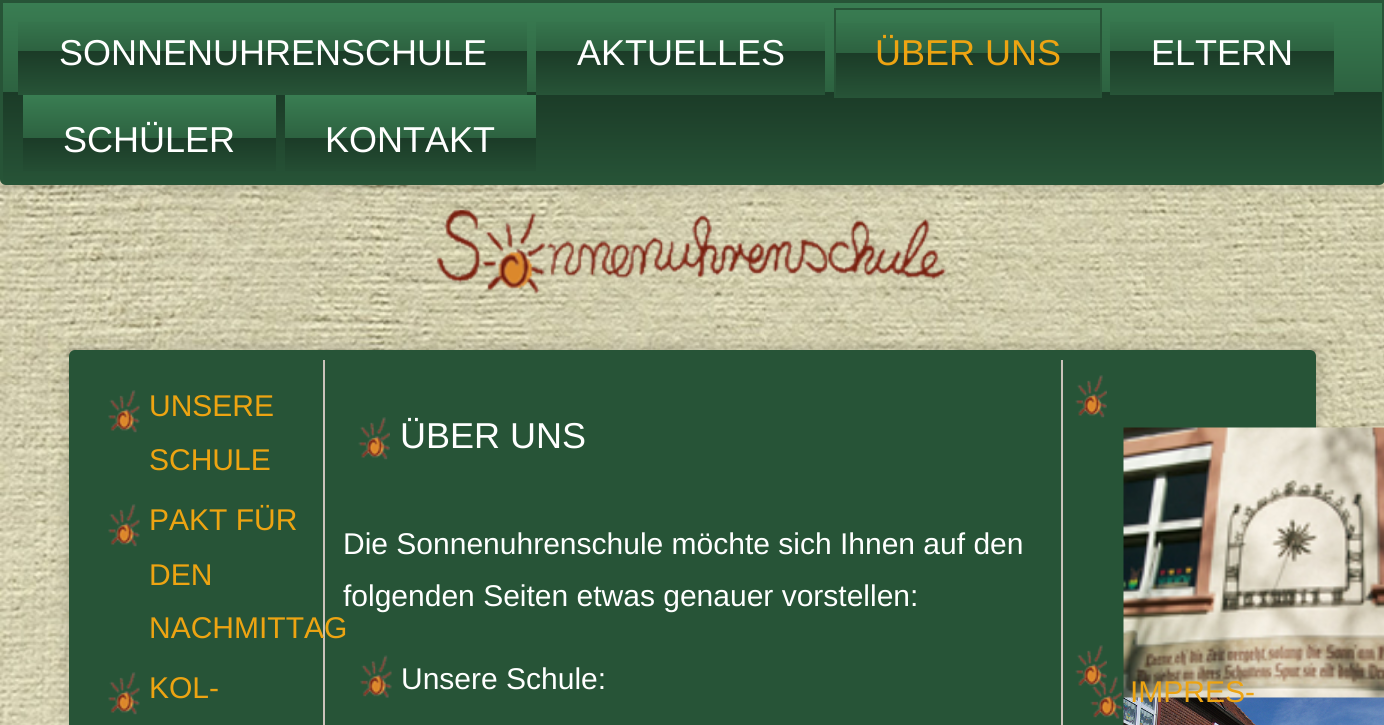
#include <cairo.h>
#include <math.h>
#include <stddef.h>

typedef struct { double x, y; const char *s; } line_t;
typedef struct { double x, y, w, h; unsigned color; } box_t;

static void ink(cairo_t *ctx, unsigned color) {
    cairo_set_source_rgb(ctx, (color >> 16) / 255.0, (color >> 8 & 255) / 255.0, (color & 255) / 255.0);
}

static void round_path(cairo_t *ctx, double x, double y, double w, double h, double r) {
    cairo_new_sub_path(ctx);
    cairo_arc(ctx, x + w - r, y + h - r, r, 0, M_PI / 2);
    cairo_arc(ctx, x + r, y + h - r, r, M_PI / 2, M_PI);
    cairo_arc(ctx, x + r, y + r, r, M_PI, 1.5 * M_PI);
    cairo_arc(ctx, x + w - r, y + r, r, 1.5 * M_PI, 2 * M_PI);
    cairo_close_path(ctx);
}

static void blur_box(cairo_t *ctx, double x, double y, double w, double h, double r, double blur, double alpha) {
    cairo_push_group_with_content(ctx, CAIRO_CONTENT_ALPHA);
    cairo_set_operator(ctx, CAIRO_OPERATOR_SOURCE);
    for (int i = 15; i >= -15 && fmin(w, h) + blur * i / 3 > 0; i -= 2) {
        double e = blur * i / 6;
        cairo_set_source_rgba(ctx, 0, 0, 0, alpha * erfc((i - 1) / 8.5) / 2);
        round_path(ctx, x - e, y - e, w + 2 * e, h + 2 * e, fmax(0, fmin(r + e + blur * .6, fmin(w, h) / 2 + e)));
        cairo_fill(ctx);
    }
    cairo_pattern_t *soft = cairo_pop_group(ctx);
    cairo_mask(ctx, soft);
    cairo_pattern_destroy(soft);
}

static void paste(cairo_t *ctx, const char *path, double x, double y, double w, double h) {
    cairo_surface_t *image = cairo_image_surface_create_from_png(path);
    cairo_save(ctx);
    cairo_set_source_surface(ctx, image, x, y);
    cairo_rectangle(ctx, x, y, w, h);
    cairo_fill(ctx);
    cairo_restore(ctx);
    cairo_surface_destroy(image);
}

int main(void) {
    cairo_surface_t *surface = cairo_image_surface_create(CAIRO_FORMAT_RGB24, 1384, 725);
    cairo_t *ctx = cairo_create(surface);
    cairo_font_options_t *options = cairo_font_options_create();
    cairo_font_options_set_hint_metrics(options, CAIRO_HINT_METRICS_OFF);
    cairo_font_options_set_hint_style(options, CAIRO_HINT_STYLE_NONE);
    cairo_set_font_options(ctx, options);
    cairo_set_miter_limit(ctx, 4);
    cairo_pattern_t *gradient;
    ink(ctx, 0xFFFFFF);
    cairo_paint(ctx);
    paste(ctx, "media/1.png", 0, 179, 1384, 546);
    ink(ctx, 0x000000);
    blur_box(ctx, -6, -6, 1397, 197, 12, 5, 0.1);
    gradient = cairo_pattern_create_linear(692, 0, 692, 185);
    cairo_pattern_add_color_stop_rgba(gradient, 0, 0.227, 0.494, 0.325, 1);
    cairo_pattern_add_color_stop_rgba(gradient, 0.5, 0.176, 0.384, 0.251, 1);
    cairo_pattern_add_color_stop_rgba(gradient, 0.5, 0.106, 0.231, 0.153, 1);
    cairo_pattern_add_color_stop_rgba(gradient, 1, 0.153, 0.329, 0.216, 1);
    cairo_set_source(ctx, gradient);
    cairo_pattern_destroy(gradient);
    cairo_new_path(ctx);
    cairo_move_to(ctx, 1.5, 1.5);
    cairo_line_to(ctx, 1383.5, 1.5);
    cairo_line_to(ctx, 1383.5, 179);
    cairo_curve_to(ctx, 1383.5, 181.5, 1381.5, 183.5, 1379, 183.5);
    cairo_line_to(ctx, 6, 183.5);
    cairo_curve_to(ctx, 3.5, 183.5, 1.5, 181.5, 1.5, 179);
    cairo_close_path(ctx);
    cairo_fill_preserve(ctx);
    ink(ctx, 0x275437);
    cairo_set_line_width(ctx, 3);
    cairo_stroke(ctx);
    gradient = cairo_pattern_create_linear(272, 7.5, 272, 95);
    cairo_pattern_add_color_stop_rgba(gradient, 0, 0.227, 0.494, 0.325, 1);
    cairo_pattern_add_color_stop_rgba(gradient, 0.5, 0.176, 0.384, 0.251, 1);
    cairo_pattern_add_color_stop_rgba(gradient, 0.5, 0.106, 0.231, 0.153, 1);
    cairo_pattern_add_color_stop_rgba(gradient, 1, 0.153, 0.329, 0.216, 1);
    cairo_set_source(ctx, gradient);
    cairo_pattern_destroy(gradient);
    cairo_rectangle(ctx, 18, 22, 509, 73);
    cairo_fill(ctx);
    cairo_select_font_face(ctx, "Liberation Sans", CAIRO_FONT_SLANT_NORMAL, CAIRO_FONT_WEIGHT_NORMAL);
    cairo_set_font_size(ctx, 36);
    ink(ctx, 0xFFFFFF);
    cairo_move_to(ctx, 59, 65);
    cairo_show_text(ctx, "SONNENUHRENSCHULE");
    gradient = cairo_pattern_create_linear(680, 7.5, 680, 95);
    cairo_pattern_add_color_stop_rgba(gradient, 0, 0.227, 0.494, 0.325, 1);
    cairo_pattern_add_color_stop_rgba(gradient, 0.5, 0.176, 0.384, 0.251, 1);
    cairo_pattern_add_color_stop_rgba(gradient, 0.5, 0.106, 0.231, 0.153, 1);
    cairo_pattern_add_color_stop_rgba(gradient, 1, 0.153, 0.329, 0.216, 1);
    cairo_set_source(ctx, gradient);
    cairo_pattern_destroy(gradient);
    cairo_rectangle(ctx, 536, 22, 289, 73);
    cairo_fill(ctx);
    ink(ctx, 0xFFFFFF);
    cairo_move_to(ctx, 577, 65);
    cairo_show_text(ctx, "AKTUELLES");
    gradient = cairo_pattern_create_linear(968, 7.5, 968, 98);
    cairo_pattern_add_color_stop_rgba(gradient, 0, 0.227, 0.494, 0.325, 1);
    cairo_pattern_add_color_stop_rgba(gradient, 0.5, 0.176, 0.384, 0.251, 1);
    cairo_pattern_add_color_stop_rgba(gradient, 0.5, 0.106, 0.231, 0.153, 1);
    cairo_pattern_add_color_stop_rgba(gradient, 1, 0.153, 0.329, 0.216, 1);
    cairo_set_source(ctx, gradient);
    cairo_pattern_destroy(gradient);
    cairo_rectangle(ctx, 836, 23, 264, 75);
    cairo_fill(ctx);
    {
        static const box_t items[] = {
            {834, 8, 267, 2, 0x275437},
            {1100, 8, 2, 90, 0x275437},
            {834, 8, 2, 90, 0x275437},
        };
        for (size_t i = 0; i < sizeof items / sizeof *items; i++) {
            ink(ctx, items[i].color);
            cairo_rectangle(ctx, items[i].x, items[i].y, items[i].w, items[i].h);
            cairo_fill(ctx);
        }
    }
    ink(ctx, 0xEDA412);
    cairo_move_to(ctx, 875, 65);
    cairo_show_text(ctx, "ÜBER UNS");
    gradient = cairo_pattern_create_linear(1222, 7.5, 1222, 95);
    cairo_pattern_add_color_stop_rgba(gradient, 0, 0.227, 0.494, 0.325, 1);
    cairo_pattern_add_color_stop_rgba(gradient, 0.5, 0.176, 0.384, 0.251, 1);
    cairo_pattern_add_color_stop_rgba(gradient, 0.5, 0.106, 0.231, 0.153, 1);
    cairo_pattern_add_color_stop_rgba(gradient, 1, 0.153, 0.329, 0.216, 1);
    cairo_set_source(ctx, gradient);
    cairo_pattern_destroy(gradient);
    cairo_rectangle(ctx, 1110, 22, 224, 73);
    cairo_fill(ctx);
    ink(ctx, 0xFFFFFF);
    cairo_move_to(ctx, 1151, 65);
    cairo_show_text(ctx, "ELTERN");
    gradient = cairo_pattern_create_linear(149, 94, 149, 182);
    cairo_pattern_add_color_stop_rgba(gradient, 0, 0.227, 0.494, 0.325, 1);
    cairo_pattern_add_color_stop_rgba(gradient, 0.5, 0.176, 0.384, 0.251, 1);
    cairo_pattern_add_color_stop_rgba(gradient, 0.5, 0.106, 0.231, 0.153, 1);
    cairo_pattern_add_color_stop_rgba(gradient, 1, 0.153, 0.329, 0.216, 1);
    cairo_set_source(ctx, gradient);
    cairo_pattern_destroy(gradient);
    cairo_rectangle(ctx, 23, 95, 253, 76);
    cairo_fill(ctx);
    ink(ctx, 0xFFFFFF);
    cairo_move_to(ctx, 63, 152);
    cairo_show_text(ctx, "SCHÜLER");
    gradient = cairo_pattern_create_linear(410, 94, 410, 182);
    cairo_pattern_add_color_stop_rgba(gradient, 0, 0.227, 0.494, 0.325, 1);
    cairo_pattern_add_color_stop_rgba(gradient, 0.5, 0.176, 0.384, 0.251, 1);
    cairo_pattern_add_color_stop_rgba(gradient, 0.5, 0.106, 0.231, 0.153, 1);
    cairo_pattern_add_color_stop_rgba(gradient, 1, 0.153, 0.329, 0.216, 1);
    cairo_set_source(ctx, gradient);
    cairo_pattern_destroy(gradient);
    cairo_rectangle(ctx, 285, 95, 251, 76);
    cairo_fill(ctx);
    ink(ctx, 0xFFFFFF);
    cairo_move_to(ctx, 325, 152);
    cairo_show_text(ctx, "KONTAKT");
    paste(ctx, "media/2.png", 436, 209, 510, 86);
    ink(ctx, 0x000000);
    blur_box(ctx, 63, 344, 1259, 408, 12, 5, 0.1);
    ink(ctx, 0x275437);
    round_path(ctx, 69, 350, 1247, 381, 6);
    cairo_fill(ctx);
    ink(ctx, 0xCAC3BA);
    cairo_rectangle(ctx, 323, 360, 2, 365);
    cairo_fill(ctx);
    paste(ctx, "media/3.png", 108, 390, 32, 43);
    cairo_set_font_size(ctx, 30);
    ink(ctx, 0xEDA412);
    cairo_move_to(ctx, 149, 416);
    cairo_show_text(ctx, "UNSERE");
    cairo_move_to(ctx, 149, 470);
    cairo_show_text(ctx, "SCHULE");
    paste(ctx, "media/3.png", 108, 504, 32, 43);
    {
        static const line_t items[] = {
            {149, 530, "PAKT FÜR"},
            {149, 585, "DEN"},
            {149, 638, "NACHMITTAG"},
        };
        for (size_t i = 0; i < sizeof items / sizeof *items; i++) {
            cairo_move_to(ctx, items[i].x, items[i].y);
            cairo_show_text(ctx, items[i].s);
        }
    }
    paste(ctx, "media/3.png", 108, 672, 32, 43);
    cairo_move_to(ctx, 149, 698);
    cairo_show_text(ctx, "KOL-");
    paste(ctx, "media/4.png", 358, 417, 32, 43);
    cairo_set_font_size(ctx, 36);
    ink(ctx, 0xFFFFFF);
    cairo_move_to(ctx, 400, 448);
    cairo_show_text(ctx, "ÜBER UNS");
    cairo_set_font_size(ctx, 30);
    cairo_move_to(ctx, 343, 554);
    cairo_show_text(ctx, "Die Sonnenuhrenschule möchte sich Ihnen auf den");
    cairo_move_to(ctx, 343, 606);
    cairo_show_text(ctx, "folgenden Seiten etwas genauer vorstellen:");
    paste(ctx, "media/5.png", 360, 655, 32, 43);
    cairo_move_to(ctx, 401, 689);
    cairo_show_text(ctx, "Unsere Schule:");
    ink(ctx, 0xCAC3BA);
    cairo_rectangle(ctx, 1061, 360, 2, 365);
    cairo_fill(ctx);
    paste(ctx, "media/6.png", 1075, 375, 32, 43);
    paste(ctx, "media/7.png", 1123, 427, 261, 298);
    paste(ctx, "media/6.png", 1075, 645, 32, 43);
    paste(ctx, "media/8.png", 1123, 697, 261, 28);
    paste(ctx, "media/9.png", 1090, 676, 32, 43);
    ink(ctx, 0xEDA412);
    cairo_move_to(ctx, 1130, 702);
    cairo_show_text(ctx, "IMPRES-");
    cairo_surface_write_to_png(surface, "image.png");
    cairo_font_options_destroy(options);
    cairo_destroy(ctx);
    cairo_surface_destroy(surface);
    return 0;
}
